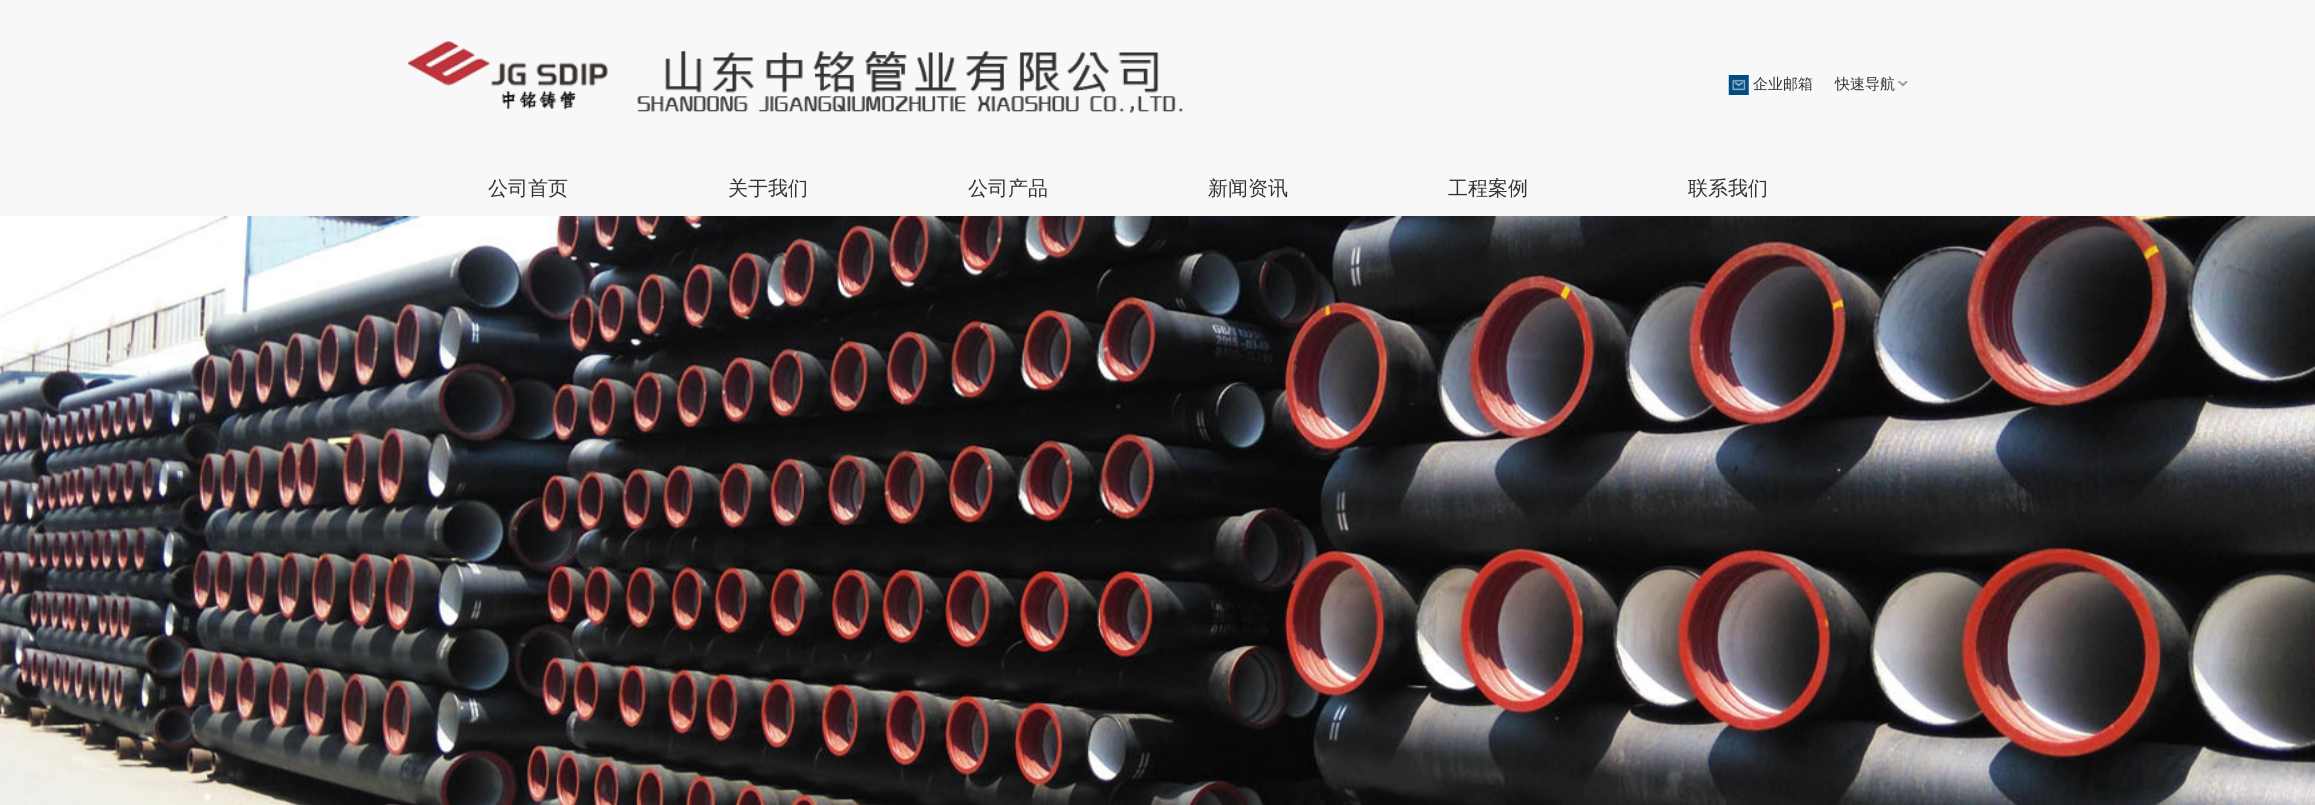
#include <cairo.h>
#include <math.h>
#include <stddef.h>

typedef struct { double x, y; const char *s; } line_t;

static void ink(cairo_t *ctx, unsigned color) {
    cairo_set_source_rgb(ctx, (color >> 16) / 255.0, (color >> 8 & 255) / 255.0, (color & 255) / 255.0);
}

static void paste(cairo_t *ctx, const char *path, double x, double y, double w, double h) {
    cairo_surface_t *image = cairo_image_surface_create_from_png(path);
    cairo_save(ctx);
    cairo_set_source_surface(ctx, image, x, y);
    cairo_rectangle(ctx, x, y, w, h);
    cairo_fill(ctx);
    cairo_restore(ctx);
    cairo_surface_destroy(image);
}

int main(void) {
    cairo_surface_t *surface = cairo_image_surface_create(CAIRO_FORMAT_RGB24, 2315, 805);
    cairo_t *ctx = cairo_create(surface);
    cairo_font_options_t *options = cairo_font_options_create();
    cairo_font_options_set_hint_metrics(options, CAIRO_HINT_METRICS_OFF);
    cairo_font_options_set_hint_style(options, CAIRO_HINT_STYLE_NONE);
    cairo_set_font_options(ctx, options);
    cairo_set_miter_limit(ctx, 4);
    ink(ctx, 0xF9F8F8);
    cairo_paint(ctx);
    paste(ctx, "media/1.png", 408, 41, 775, 72);
    paste(ctx, "media/2.png", 1728, 75, 21, 20);
    cairo_select_font_face(ctx, "WenQuanYi Zen Hei Medium", CAIRO_FONT_SLANT_NORMAL, CAIRO_FONT_WEIGHT_NORMAL);
    cairo_set_font_size(ctx, 15);
    ink(ctx, 0x333333);
    cairo_move_to(ctx, 1753, 89);
    cairo_show_text(ctx, "企业邮箱");
    cairo_move_to(ctx, 1835, 89);
    cairo_show_text(ctx, "快速导航");
    paste(ctx, "media/3.png", 1897, 81, 11, 6);
    cairo_set_font_size(ctx, 20);
    {
        static const line_t items[] = {
            {488, 195, "公司首页"},
            {728, 195, "关于我们"},
            {968, 195, "公司产品"},
            {1208, 195, "新闻资讯"},
            {1448, 195, "工程案例"},
            {1688, 195, "联系我们"},
        };
        for (size_t i = 0; i < sizeof items / sizeof *items; i++) {
            cairo_move_to(ctx, items[i].x, items[i].y);
            cairo_show_text(ctx, items[i].s);
        }
    }
    paste(ctx, "media/4.png", 0, 216, 2315, 589);
    cairo_surface_write_to_png(surface, "image.png");
    cairo_font_options_destroy(options);
    cairo_destroy(ctx);
    cairo_surface_destroy(surface);
    return 0;
}
